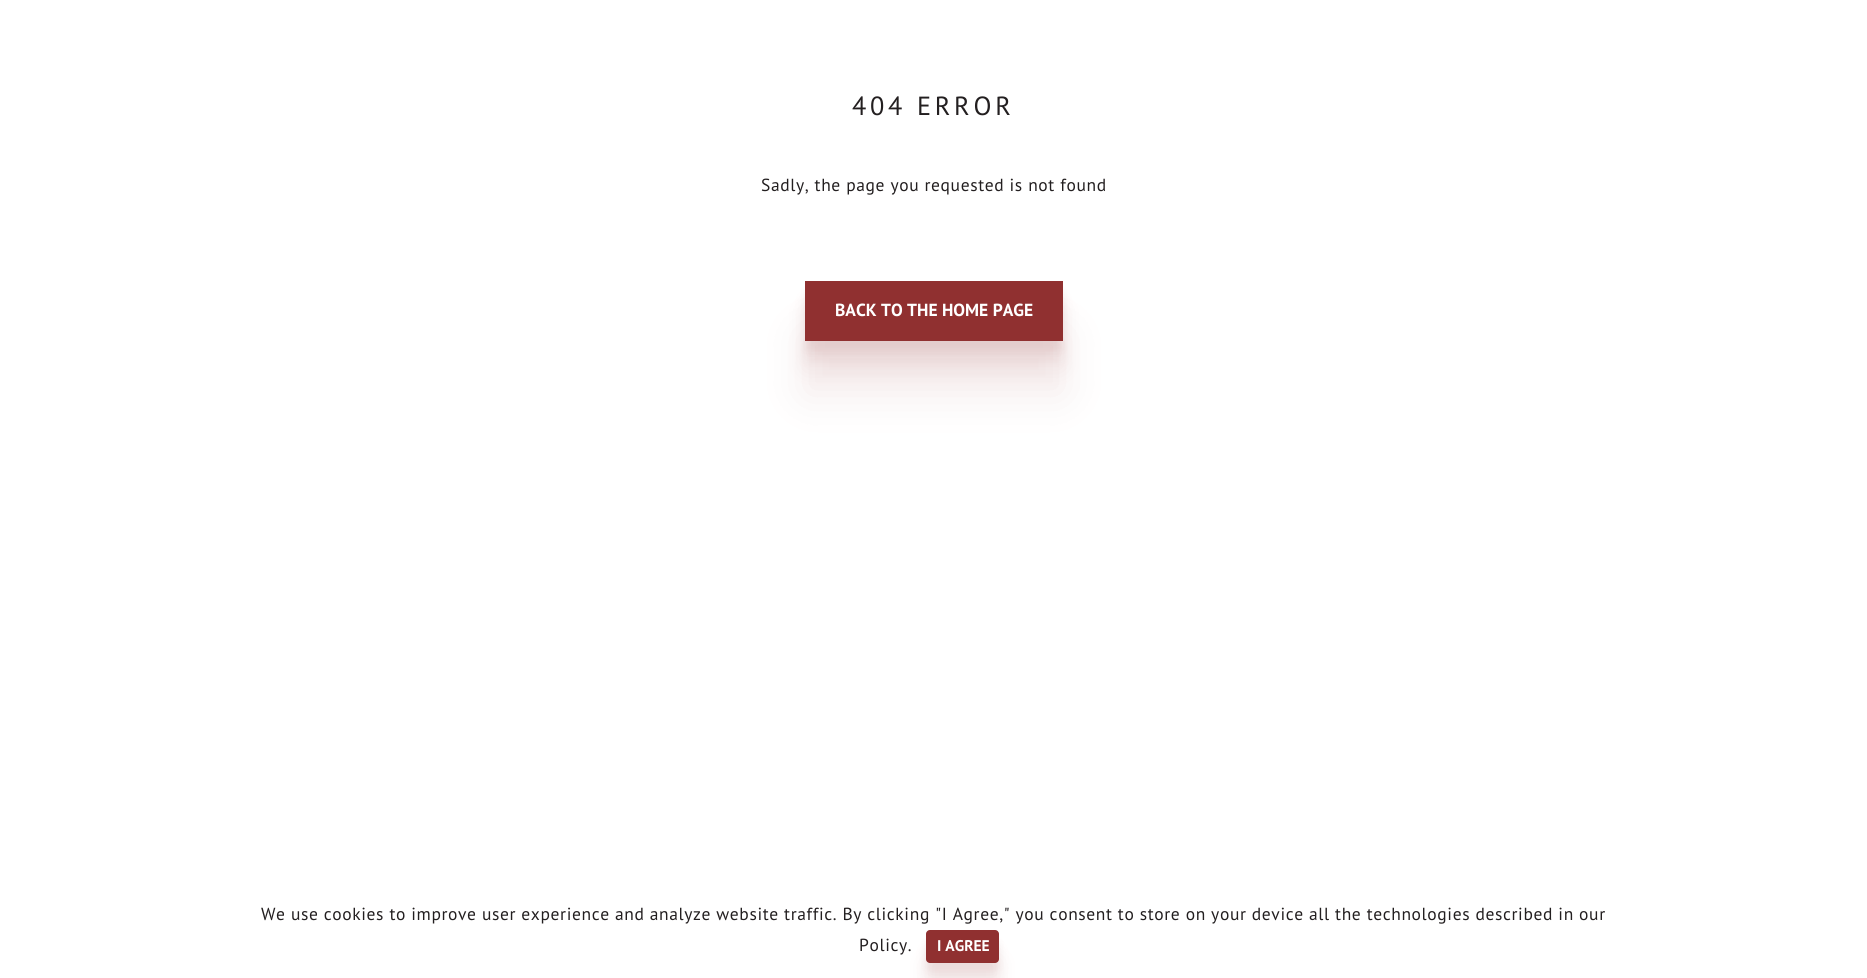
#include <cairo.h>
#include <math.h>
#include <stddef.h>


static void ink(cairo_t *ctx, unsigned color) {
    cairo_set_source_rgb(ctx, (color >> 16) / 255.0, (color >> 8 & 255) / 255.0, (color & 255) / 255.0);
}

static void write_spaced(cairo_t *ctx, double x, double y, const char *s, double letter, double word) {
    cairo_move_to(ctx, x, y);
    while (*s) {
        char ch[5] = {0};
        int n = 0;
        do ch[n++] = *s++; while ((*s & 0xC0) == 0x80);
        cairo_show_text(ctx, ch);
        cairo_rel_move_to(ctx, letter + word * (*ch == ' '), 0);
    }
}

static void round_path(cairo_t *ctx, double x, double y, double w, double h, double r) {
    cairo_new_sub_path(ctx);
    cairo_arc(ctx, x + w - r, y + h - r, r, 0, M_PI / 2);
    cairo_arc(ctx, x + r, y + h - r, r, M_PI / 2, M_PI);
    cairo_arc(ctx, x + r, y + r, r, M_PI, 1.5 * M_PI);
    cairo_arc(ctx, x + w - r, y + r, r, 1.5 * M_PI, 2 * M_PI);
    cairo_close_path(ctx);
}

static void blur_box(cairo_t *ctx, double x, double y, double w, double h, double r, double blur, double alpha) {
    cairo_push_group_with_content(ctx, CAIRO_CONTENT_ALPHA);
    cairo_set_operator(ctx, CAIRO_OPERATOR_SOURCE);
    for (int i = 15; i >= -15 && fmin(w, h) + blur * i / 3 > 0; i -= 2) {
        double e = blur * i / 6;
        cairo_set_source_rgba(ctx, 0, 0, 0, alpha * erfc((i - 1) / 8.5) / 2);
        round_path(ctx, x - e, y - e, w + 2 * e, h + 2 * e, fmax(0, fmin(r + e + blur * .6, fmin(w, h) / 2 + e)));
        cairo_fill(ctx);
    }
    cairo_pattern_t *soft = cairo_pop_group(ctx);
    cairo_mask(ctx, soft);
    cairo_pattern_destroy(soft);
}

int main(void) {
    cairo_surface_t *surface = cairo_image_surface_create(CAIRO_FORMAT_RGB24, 1867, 978);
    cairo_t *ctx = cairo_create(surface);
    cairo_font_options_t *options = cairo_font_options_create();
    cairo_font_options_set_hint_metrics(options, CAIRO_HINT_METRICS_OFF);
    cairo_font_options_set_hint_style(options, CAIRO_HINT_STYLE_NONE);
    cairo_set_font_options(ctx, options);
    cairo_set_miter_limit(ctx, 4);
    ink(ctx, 0xFFFFFF);
    cairo_paint(ctx);
    cairo_select_font_face(ctx, "PT Sans", CAIRO_FONT_SLANT_NORMAL, CAIRO_FONT_WEIGHT_NORMAL);
    cairo_set_font_size(ctx, 26.25);
    ink(ctx, 0x231F20);
    write_spaced(ctx, 852, 115, "404 ERROR", 3.75, 0);
    cairo_set_font_size(ctx, 17.5);
    write_spaced(ctx, 761, 191, "Sadly, the page you requested is not found", 0.62, 0);
    ink(ctx, 0x903030);
    blur_box(ctx, 805, 290, 258, 60, 0, 3.5, 0.06);
    blur_box(ctx, 805, 298, 258, 60, 0, 6.5, 0.07);
    blur_box(ctx, 805, 309, 258, 60, 0, 11, 0.08);
    blur_box(ctx, 805, 334, 258, 60, 0, 21, 0.1);
    ink(ctx, 0x903030);
    cairo_rectangle(ctx, 805, 281, 258, 60);
    cairo_fill(ctx);
    cairo_select_font_face(ctx, "PT Sans", CAIRO_FONT_SLANT_NORMAL, CAIRO_FONT_WEIGHT_BOLD);
    ink(ctx, 0xFFFFFF);
    cairo_move_to(ctx, 835, 316);
    cairo_show_text(ctx, "BACK TO THE HOME PAGE");
    cairo_select_font_face(ctx, "PT Sans", CAIRO_FONT_SLANT_NORMAL, CAIRO_FONT_WEIGHT_NORMAL);
    ink(ctx, 0x231F20);
    write_spaced(ctx, 261, 920, "We use cookies to improve user experience and analyze website traffic. By clicking \"I Agree,\" you consent to store on your device all the technologies described in our", 0.62, 0);
    write_spaced(ctx, 859, 951, "Policy.", 0.62, 0);
    ink(ctx, 0x903030);
    blur_box(ctx, 926, 939, 73, 32, 4, 3.5, 0.06);
    blur_box(ctx, 926, 946, 73, 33, 4, 6.5, 0.07);
    blur_box(ctx, 926, 958, 73, 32, 4, 11, 0.08);
    ink(ctx, 0x903030);
    round_path(ctx, 926, 930, 73, 33, 4);
    cairo_fill(ctx);
    cairo_select_font_face(ctx, "PT Sans", CAIRO_FONT_SLANT_NORMAL, CAIRO_FONT_WEIGHT_BOLD);
    cairo_set_font_size(ctx, 15.5);
    ink(ctx, 0xFFFFFF);
    cairo_move_to(ctx, 937, 951);
    cairo_show_text(ctx, "I AGREE");
    cairo_surface_write_to_png(surface, "image.png");
    cairo_font_options_destroy(options);
    cairo_destroy(ctx);
    cairo_surface_destroy(surface);
    return 0;
}
